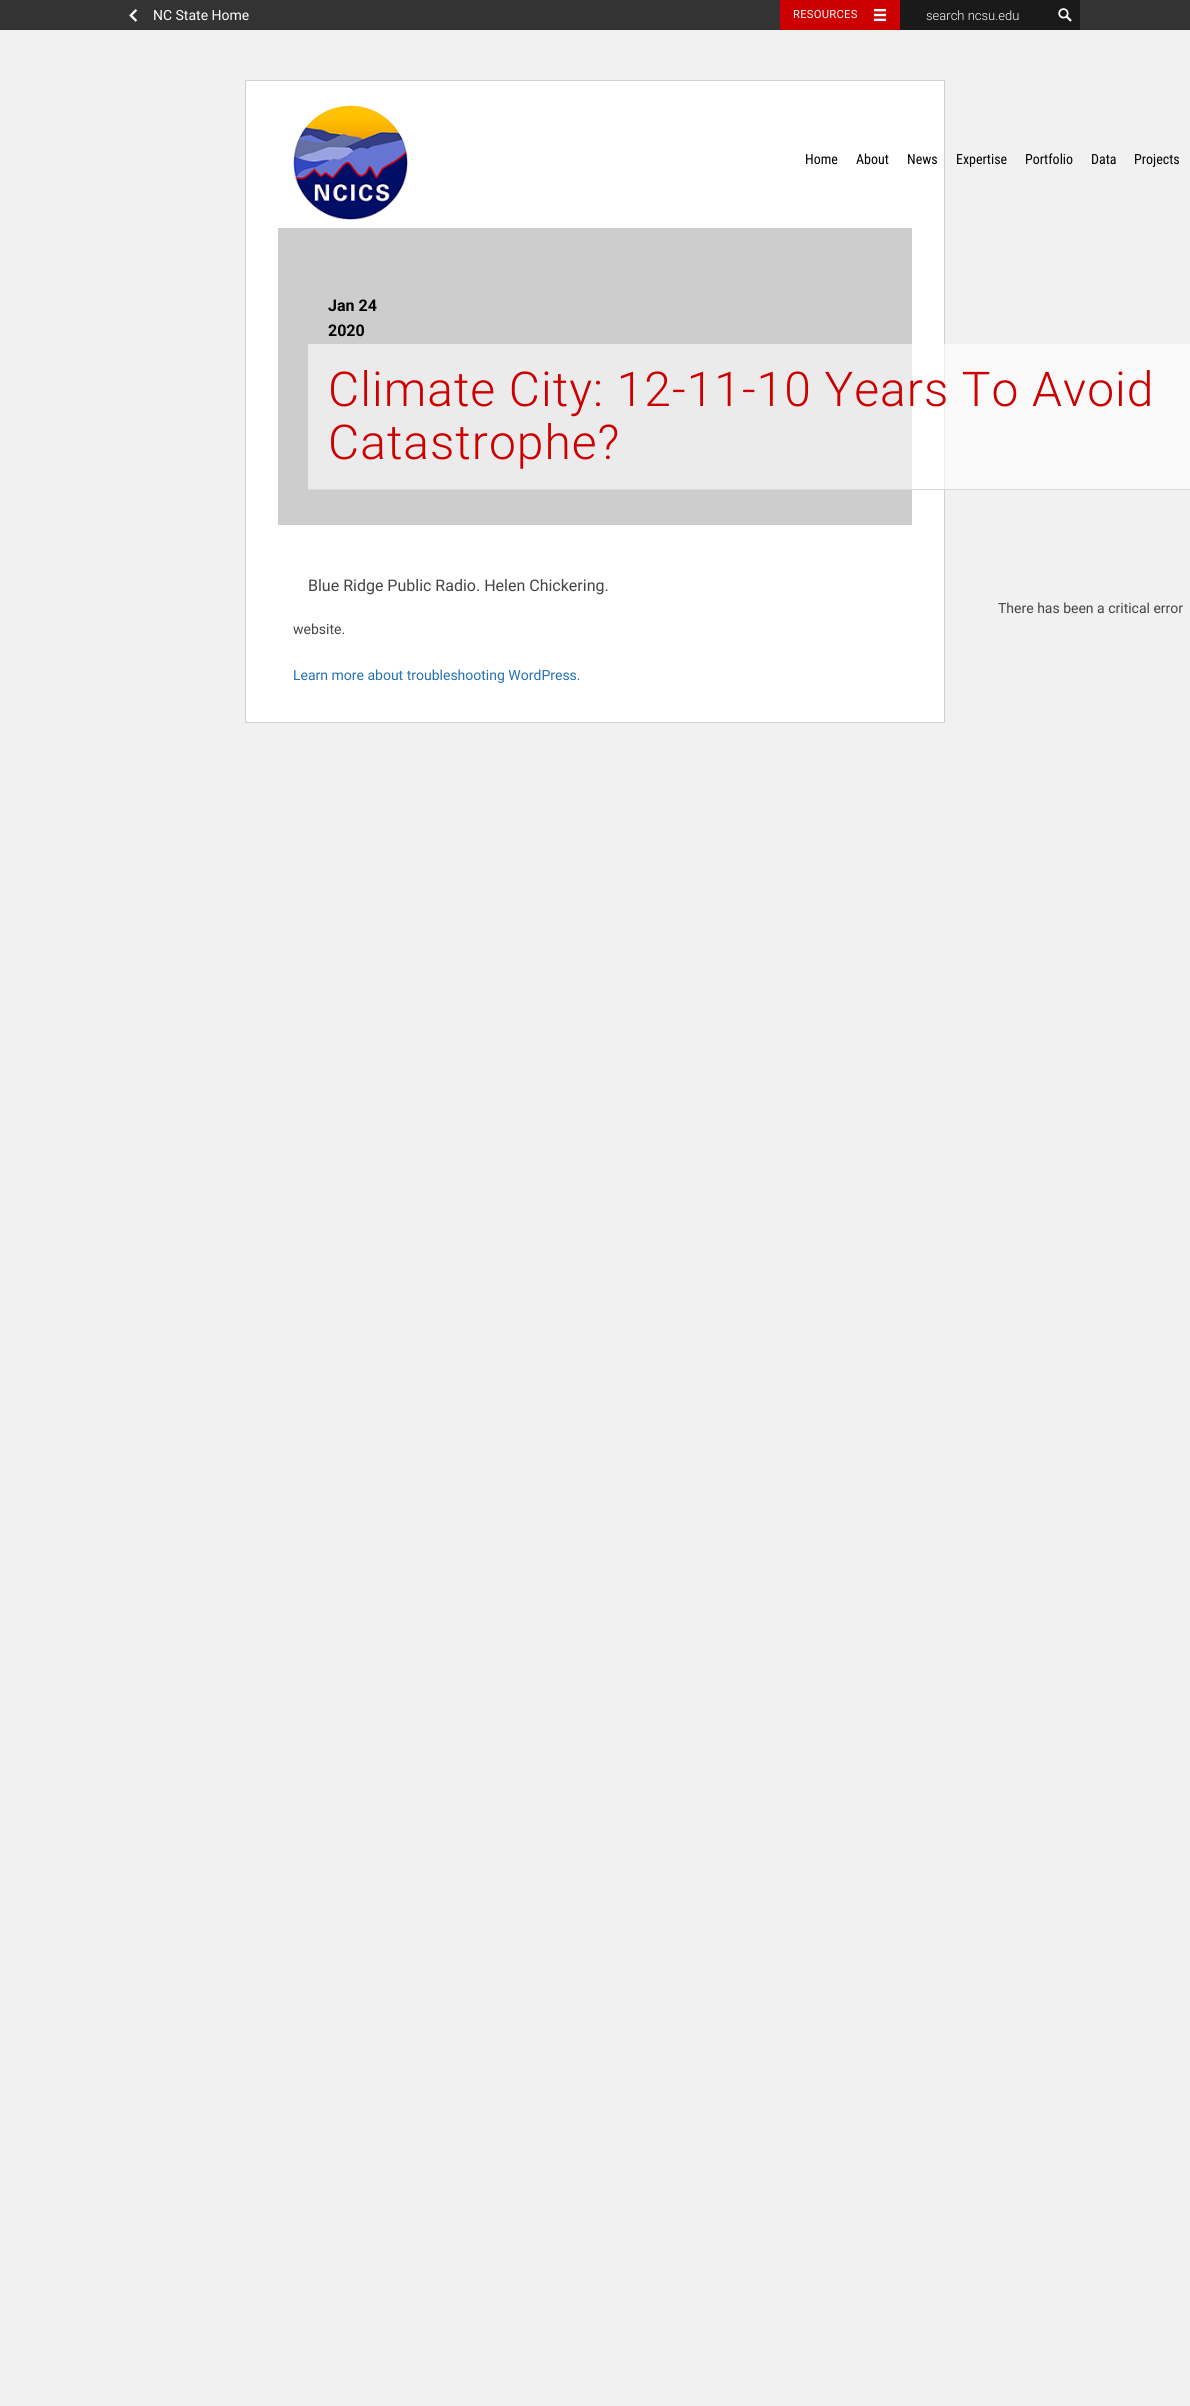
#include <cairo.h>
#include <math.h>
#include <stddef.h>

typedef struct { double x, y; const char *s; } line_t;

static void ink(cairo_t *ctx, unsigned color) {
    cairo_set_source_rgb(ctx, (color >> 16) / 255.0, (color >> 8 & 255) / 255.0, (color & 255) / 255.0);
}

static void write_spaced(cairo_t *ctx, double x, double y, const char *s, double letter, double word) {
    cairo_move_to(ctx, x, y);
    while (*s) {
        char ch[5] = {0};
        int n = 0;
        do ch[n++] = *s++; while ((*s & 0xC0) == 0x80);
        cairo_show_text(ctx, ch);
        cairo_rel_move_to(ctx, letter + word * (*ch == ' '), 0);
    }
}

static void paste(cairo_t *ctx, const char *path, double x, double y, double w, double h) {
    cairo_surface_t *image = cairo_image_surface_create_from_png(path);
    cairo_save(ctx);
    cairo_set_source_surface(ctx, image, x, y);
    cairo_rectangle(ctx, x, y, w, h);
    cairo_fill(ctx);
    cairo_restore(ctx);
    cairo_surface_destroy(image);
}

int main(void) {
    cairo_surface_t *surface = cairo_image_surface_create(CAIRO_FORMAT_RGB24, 1190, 2406);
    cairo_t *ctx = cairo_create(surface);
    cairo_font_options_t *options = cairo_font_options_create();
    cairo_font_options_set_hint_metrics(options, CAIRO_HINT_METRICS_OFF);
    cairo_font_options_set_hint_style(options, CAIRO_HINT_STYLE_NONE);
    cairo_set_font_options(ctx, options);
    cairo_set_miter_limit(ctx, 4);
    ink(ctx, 0xF1F1F1);
    cairo_paint(ctx);
    ink(ctx, 0xFFFFFF);
    cairo_rectangle(ctx, 245.5, 80.5, 699, 642);
    cairo_fill_preserve(ctx);
    ink(ctx, 0xCCD0D4);
    cairo_set_line_width(ctx, 1);
    cairo_stroke(ctx);
    ink(ctx, 0x333333);
    cairo_rectangle(ctx, 0, 0, 1190, 30);
    cairo_fill(ctx);
    paste(ctx, "media/1.png", 129, 9, 9, 13);
    cairo_select_font_face(ctx, "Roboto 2", CAIRO_FONT_SLANT_NORMAL, CAIRO_FONT_WEIGHT_NORMAL);
    cairo_set_font_size(ctx, 14);
    ink(ctx, 0xFFFFFF);
    cairo_move_to(ctx, 153, 20);
    cairo_show_text(ctx, "NC State Home");
    ink(ctx, 0xCC0000);
    cairo_rectangle(ctx, 780, 0, 120, 30);
    cairo_fill(ctx);
    paste(ctx, "media/2.png", 873, 8, 14, 14);
    cairo_set_font_size(ctx, 11.25);
    ink(ctx, 0xFFFFFF);
    write_spaced(ctx, 793, 18, "RESOURCES", 0.25, 0);
    ink(ctx, 0x1A1A1A);
    cairo_rectangle(ctx, 900, 0, 180, 30);
    cairo_fill(ctx);
    cairo_select_font_face(ctx, "Roboto Light", CAIRO_FONT_SLANT_NORMAL, CAIRO_FONT_WEIGHT_NORMAL);
    cairo_set_font_size(ctx, 13);
    ink(ctx, 0xFFFFFF);
    cairo_move_to(ctx, 926, 20);
    cairo_show_text(ctx, "search ncsu.edu");
    paste(ctx, "media/3.png", 1058, 8, 14, 14);
    ink(ctx, 0xCCCCCC);
    cairo_rectangle(ctx, 278, 228, 634, 1);
    cairo_fill(ctx);
    paste(ctx, "media/4.png", 293, 105, 115, 115);
    cairo_select_font_face(ctx, "Roboto Condensed", CAIRO_FONT_SLANT_NORMAL, CAIRO_FONT_WEIGHT_NORMAL);
    cairo_set_font_size(ctx, 14);
    ink(ctx, 0x000000);
    {
        static const line_t items[] = {
            {805, 164, "Home"},
            {856, 164, "About"},
            {907, 164, "News"},
            {956, 164, "Expertise"},
            {1025, 164, "Portfolio"},
            {1091, 164, "Data"},
            {1134, 164, "Projects"},
        };
        for (size_t i = 0; i < sizeof items / sizeof *items; i++) {
            cairo_move_to(ctx, items[i].x, items[i].y);
            cairo_show_text(ctx, items[i].s);
        }
    }
    ink(ctx, 0xCDCDCD);
    cairo_rectangle(ctx, 278, 229, 634, 296);
    cairo_fill(ctx);
    cairo_select_font_face(ctx, "Roboto", CAIRO_FONT_SLANT_NORMAL, CAIRO_FONT_WEIGHT_BOLD);
    cairo_set_font_size(ctx, 16);
    ink(ctx, 0x000000);
    cairo_move_to(ctx, 328, 311);
    cairo_show_text(ctx, "Jan 24");
    cairo_move_to(ctx, 328, 336);
    cairo_show_text(ctx, "2020");
    cairo_set_source_rgba(ctx, 1, 1, 1, 0.6);
    cairo_rectangle(ctx, 308, 344, 882, 145);
    cairo_fill(ctx);
    ink(ctx, 0xDADADA);
    cairo_rectangle(ctx, 308, 489, 882, 1);
    cairo_fill(ctx);
    cairo_select_font_face(ctx, "Roboto Light", CAIRO_FONT_SLANT_NORMAL, CAIRO_FONT_WEIGHT_NORMAL);
    cairo_set_font_size(ctx, 48);
    ink(ctx, 0xCC0000);
    write_spaced(ctx, 328, 406, "Climate City: 12-11-10 Years To Avoid", 1, 0);
    write_spaced(ctx, 328, 459, "Catastrophe?", 1, 0);
    cairo_select_font_face(ctx, "Roboto", CAIRO_FONT_SLANT_NORMAL, CAIRO_FONT_WEIGHT_NORMAL);
    cairo_set_font_size(ctx, 16);
    ink(ctx, 0x444444);
    cairo_move_to(ctx, 308, 591);
    cairo_show_text(ctx, "Blue Ridge Public Radio. Helen Chickering.");
    cairo_set_font_size(ctx, 14);
    cairo_move_to(ctx, 998, 613);
    cairo_show_text(ctx, "There has been a critical error");
    cairo_move_to(ctx, 293, 634);
    cairo_show_text(ctx, "website.");
    ink(ctx, 0x2271B1);
    cairo_move_to(ctx, 293, 680);
    cairo_show_text(ctx, "Learn more about troubleshooting WordPress.");
    cairo_surface_write_to_png(surface, "image.png");
    cairo_font_options_destroy(options);
    cairo_destroy(ctx);
    cairo_surface_destroy(surface);
    return 0;
}
